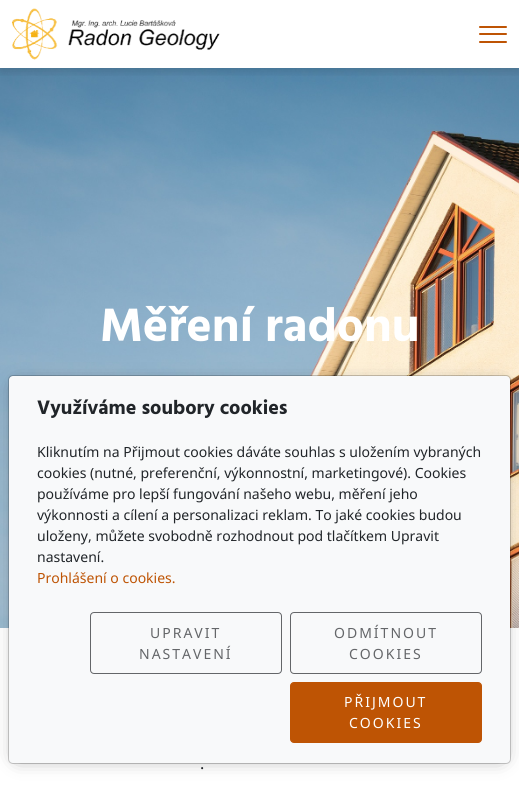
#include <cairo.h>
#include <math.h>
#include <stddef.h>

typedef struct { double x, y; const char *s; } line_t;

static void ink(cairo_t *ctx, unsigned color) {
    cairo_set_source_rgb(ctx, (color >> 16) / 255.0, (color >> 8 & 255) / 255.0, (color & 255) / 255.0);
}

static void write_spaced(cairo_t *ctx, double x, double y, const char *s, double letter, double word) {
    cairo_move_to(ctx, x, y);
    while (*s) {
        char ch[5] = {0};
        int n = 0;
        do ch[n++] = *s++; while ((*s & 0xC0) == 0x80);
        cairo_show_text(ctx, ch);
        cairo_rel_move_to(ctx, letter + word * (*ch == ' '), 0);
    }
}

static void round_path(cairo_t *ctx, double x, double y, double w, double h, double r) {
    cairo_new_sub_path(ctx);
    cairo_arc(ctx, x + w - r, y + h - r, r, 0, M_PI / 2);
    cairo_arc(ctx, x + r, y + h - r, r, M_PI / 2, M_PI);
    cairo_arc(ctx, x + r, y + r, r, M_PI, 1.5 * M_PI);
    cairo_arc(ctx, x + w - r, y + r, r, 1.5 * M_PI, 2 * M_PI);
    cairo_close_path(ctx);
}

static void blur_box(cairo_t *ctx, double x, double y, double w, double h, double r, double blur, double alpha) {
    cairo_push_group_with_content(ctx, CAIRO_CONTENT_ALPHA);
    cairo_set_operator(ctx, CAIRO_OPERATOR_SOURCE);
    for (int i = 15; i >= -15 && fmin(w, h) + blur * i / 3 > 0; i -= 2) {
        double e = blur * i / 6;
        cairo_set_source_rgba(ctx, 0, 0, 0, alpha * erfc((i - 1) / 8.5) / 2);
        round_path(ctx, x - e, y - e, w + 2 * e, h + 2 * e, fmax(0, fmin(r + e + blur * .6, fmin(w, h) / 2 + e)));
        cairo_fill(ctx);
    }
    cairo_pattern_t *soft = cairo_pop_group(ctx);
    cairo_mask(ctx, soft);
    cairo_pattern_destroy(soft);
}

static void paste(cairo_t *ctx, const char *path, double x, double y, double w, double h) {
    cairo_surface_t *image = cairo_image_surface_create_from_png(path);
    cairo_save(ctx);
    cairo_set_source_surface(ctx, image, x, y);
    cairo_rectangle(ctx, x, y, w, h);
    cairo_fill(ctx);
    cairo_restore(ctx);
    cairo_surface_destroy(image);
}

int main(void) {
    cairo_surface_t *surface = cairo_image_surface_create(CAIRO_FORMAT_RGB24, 519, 788);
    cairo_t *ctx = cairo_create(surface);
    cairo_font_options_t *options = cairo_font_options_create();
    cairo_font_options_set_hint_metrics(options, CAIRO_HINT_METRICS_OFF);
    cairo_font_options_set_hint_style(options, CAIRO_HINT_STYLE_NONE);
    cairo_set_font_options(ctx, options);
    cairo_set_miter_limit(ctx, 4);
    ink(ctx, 0xFFFFFF);
    cairo_paint(ctx);
    paste(ctx, "media/2.png", 0, 68, 519, 560);
    cairo_save(ctx);
    cairo_rectangle(ctx, 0, 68, 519, 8);
    cairo_clip(ctx);
    ink(ctx, 0x000000);
    blur_box(ctx, 0, 3, 519, 68, 0, 5, 0.14);
    cairo_restore(ctx);
    paste(ctx, "media/1.png", 12, 8, 208, 52);
    ink(ctx, 0xBE5404);
    round_path(ctx, 479, 26, 28, 2, 1);
    cairo_fill(ctx);
    round_path(ctx, 479, 33, 28, 2, 1);
    cairo_fill(ctx);
    round_path(ctx, 479, 41, 28, 2, 1);
    cairo_fill(ctx);
    cairo_select_font_face(ctx, "Hind Siliguri", CAIRO_FONT_SLANT_NORMAL, CAIRO_FONT_WEIGHT_BOLD);
    cairo_set_font_size(ctx, 48);
    ink(ctx, 0xFFFFFF);
    cairo_move_to(ctx, 100, 341);
    cairo_show_text(ctx, "Měření radonu");
    ink(ctx, 0x000000);
    blur_box(ctx, 18, 387, 483, 369, 0, 10, 0.5);
    ink(ctx, 0xF8F9FA);
    round_path(ctx, 9, 376, 501, 387, 4);
    cairo_fill(ctx);
    round_path(ctx, 8.5, 375.5, 502, 388, 4.5);
    cairo_set_source_rgba(ctx, 0, 0, 0, 0.2);
    cairo_set_line_width(ctx, 1);
    cairo_stroke(ctx);
    cairo_set_font_size(ctx, 20);
    ink(ctx, 0x212529);
    cairo_move_to(ctx, 37, 414);
    cairo_show_text(ctx, "Využíváme soubory cookies");
    cairo_select_font_face(ctx, "Noto Sans", CAIRO_FONT_SLANT_NORMAL, CAIRO_FONT_WEIGHT_NORMAL);
    cairo_set_font_size(ctx, 14);
    {
        static const line_t items[] = {
            {37, 457, "Kliknutím na Přijmout cookies dáváte souhlas s uložením vybraných"},
            {37, 478, "cookies (nutné, preferenční, výkonnostní, marketingové). Cookies"},
            {37, 499, "používáme pro lepší fungování našeho webu, měření jeho"},
            {37, 520, "výkonnosti a cílení a personalizaci reklam. To jaké cookies budou"},
            {37, 541, "uloženy, můžete svobodně rozhodnout pod tlačítkem Upravit"},
            {37, 562, "nastavení."},
        };
        for (size_t i = 0; i < sizeof items / sizeof *items; i++) {
            cairo_move_to(ctx, items[i].x, items[i].y);
            cairo_show_text(ctx, items[i].s);
        }
    }
    ink(ctx, 0xBE5404);
    cairo_move_to(ctx, 37, 583);
    cairo_show_text(ctx, "Prohlášení o cookies.");
    round_path(ctx, 90.5, 612.5, 191, 61, 3.5);
    ink(ctx, 0x646669);
    cairo_stroke(ctx);
    write_spaced(ctx, 150, 638, "UPRAVIT", 2, 0);
    write_spaced(ctx, 139, 659, "NASTAVENÍ", 2, 0);
    round_path(ctx, 290.5, 612.5, 191, 61, 3.5);
    cairo_stroke(ctx);
    write_spaced(ctx, 334, 638, "ODMÍTNOUT", 2, 0);
    write_spaced(ctx, 349, 659, "COOKIES", 2, 0);
    ink(ctx, 0xBE5404);
    round_path(ctx, 290.5, 682.5, 191, 60, 3.5);
    cairo_fill_preserve(ctx);
    cairo_stroke(ctx);
    ink(ctx, 0xFFFFFF);
    write_spaced(ctx, 344, 707, "PŘIJMOUT", 2, 0);
    write_spaced(ctx, 349, 728, "COOKIES", 2, 0);
    cairo_set_font_size(ctx, 16);
    ink(ctx, 0x212529);
    cairo_move_to(ctx, 200, 769);
    cairo_show_text(ctx, ".");
    cairo_surface_write_to_png(surface, "image.png");
    cairo_font_options_destroy(options);
    cairo_destroy(ctx);
    cairo_surface_destroy(surface);
    return 0;
}
